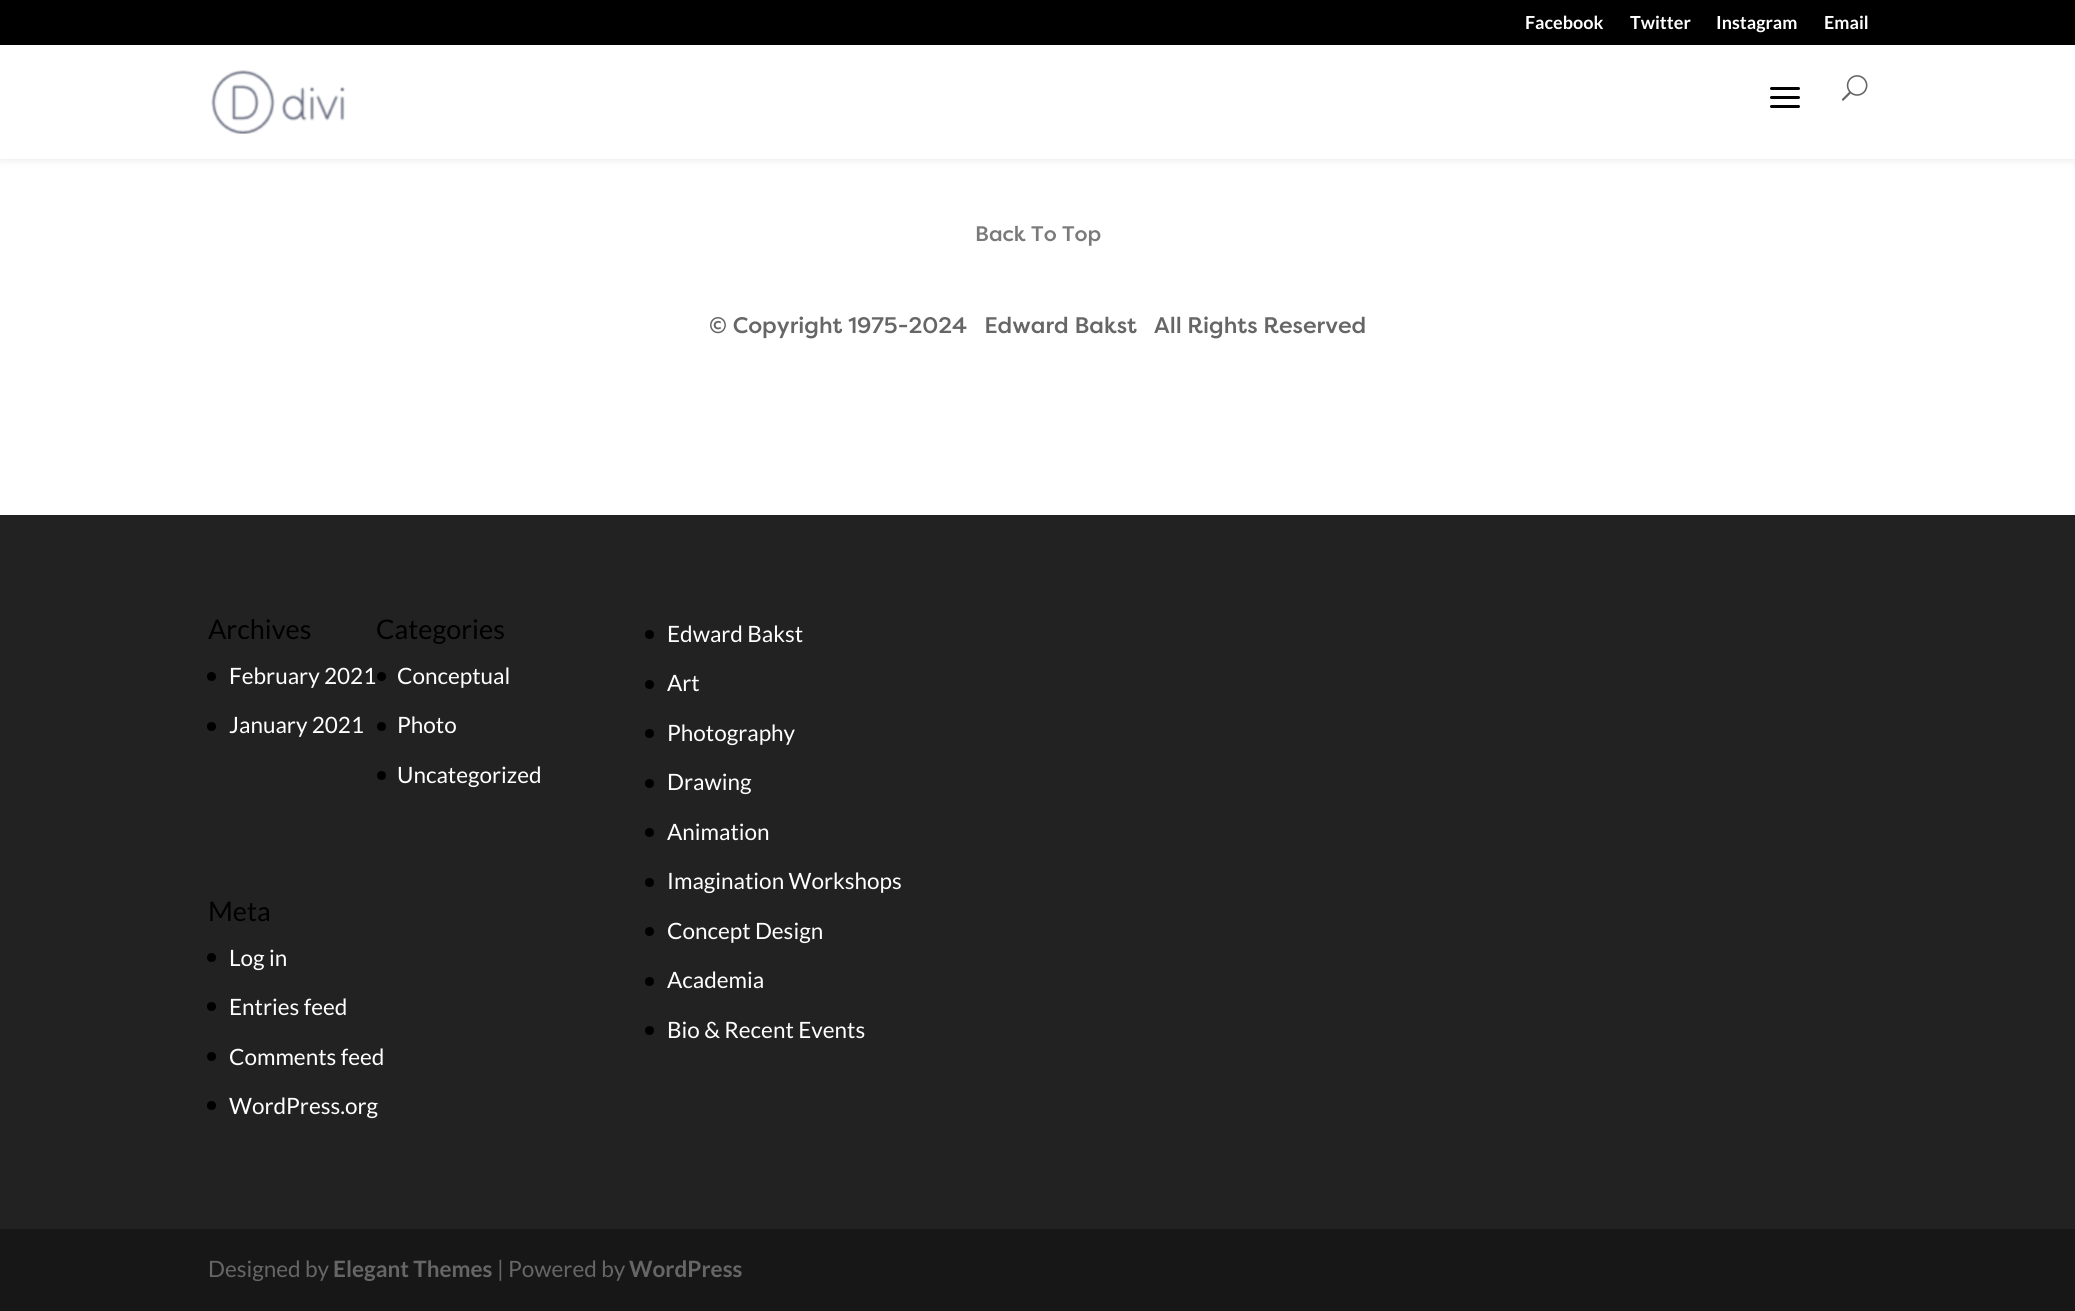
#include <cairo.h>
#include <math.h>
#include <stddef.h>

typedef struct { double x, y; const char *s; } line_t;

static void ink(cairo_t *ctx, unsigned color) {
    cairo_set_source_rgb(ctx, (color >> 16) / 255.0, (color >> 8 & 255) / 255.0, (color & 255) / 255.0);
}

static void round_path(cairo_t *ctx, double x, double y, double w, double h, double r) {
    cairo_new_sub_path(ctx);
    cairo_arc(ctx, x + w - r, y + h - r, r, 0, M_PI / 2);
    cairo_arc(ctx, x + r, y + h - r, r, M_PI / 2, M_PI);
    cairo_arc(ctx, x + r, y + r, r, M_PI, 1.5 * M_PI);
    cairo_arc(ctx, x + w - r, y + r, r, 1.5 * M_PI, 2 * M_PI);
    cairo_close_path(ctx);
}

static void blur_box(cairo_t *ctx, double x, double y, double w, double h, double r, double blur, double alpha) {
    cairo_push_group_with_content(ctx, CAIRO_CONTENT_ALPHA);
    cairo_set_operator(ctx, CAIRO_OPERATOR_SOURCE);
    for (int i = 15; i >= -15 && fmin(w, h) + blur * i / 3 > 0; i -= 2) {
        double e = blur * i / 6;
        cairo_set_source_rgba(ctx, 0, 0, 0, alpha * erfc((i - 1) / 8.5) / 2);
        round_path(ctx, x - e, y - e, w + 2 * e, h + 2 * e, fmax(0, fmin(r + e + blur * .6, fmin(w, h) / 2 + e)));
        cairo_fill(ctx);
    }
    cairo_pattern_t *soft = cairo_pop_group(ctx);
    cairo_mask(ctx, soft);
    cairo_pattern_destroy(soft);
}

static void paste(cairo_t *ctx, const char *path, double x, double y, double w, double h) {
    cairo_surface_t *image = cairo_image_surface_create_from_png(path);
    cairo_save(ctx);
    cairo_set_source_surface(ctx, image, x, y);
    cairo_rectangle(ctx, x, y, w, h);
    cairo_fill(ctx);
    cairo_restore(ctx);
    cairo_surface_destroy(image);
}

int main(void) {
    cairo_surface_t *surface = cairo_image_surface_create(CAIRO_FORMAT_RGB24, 2075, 1311);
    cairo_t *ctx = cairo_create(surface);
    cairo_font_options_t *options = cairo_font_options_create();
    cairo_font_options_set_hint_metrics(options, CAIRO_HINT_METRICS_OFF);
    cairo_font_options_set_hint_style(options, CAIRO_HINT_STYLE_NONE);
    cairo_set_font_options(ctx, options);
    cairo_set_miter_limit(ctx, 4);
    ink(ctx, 0xFFFFFF);
    cairo_paint(ctx);
    ink(ctx, 0x000000);
    blur_box(ctx, 0, 45, 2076, 114, 0, 5, 0.1);
    ink(ctx, 0x000000);
    cairo_rectangle(ctx, 0, 0, 2075, 45);
    cairo_fill(ctx);
    cairo_select_font_face(ctx, "Lato", CAIRO_FONT_SLANT_NORMAL, CAIRO_FONT_WEIGHT_BOLD);
    cairo_set_font_size(ctx, 18);
    ink(ctx, 0xFFFFFF);
    {
        static const line_t items[] = {
            {1525, 29, "Facebook"},
            {1630, 29, "Twitter"},
            {1716, 29, "Instagram"},
            {1824, 29, "Email"},
        };
        for (size_t i = 0; i < sizeof items / sizeof *items; i++) {
            cairo_move_to(ctx, items[i].x, items[i].y);
            cairo_show_text(ctx, items[i].s);
        }
    }
    cairo_rectangle(ctx, 0, 45, 2075, 114);
    cairo_fill(ctx);
    paste(ctx, "media/1.png", 211, 70, 134, 64);
    paste(ctx, "media/2.png", 1770, 87, 30, 21);
    paste(ctx, "media/3.png", 1841, 75, 27, 26);
    cairo_select_font_face(ctx, "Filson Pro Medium", CAIRO_FONT_SLANT_NORMAL, CAIRO_FONT_WEIGHT_NORMAL);
    cairo_set_font_size(ctx, 21);
    ink(ctx, 0x7A7A7A);
    cairo_move_to(ctx, 975, 241);
    cairo_show_text(ctx, "Back To Top");
    cairo_set_font_size(ctx, 22.5);
    ink(ctx, 0x666666);
    cairo_move_to(ctx, 709, 333);
    cairo_show_text(ctx, "© Copyright 1975-2024   Edward Bakst   All Rights Reserved");
    ink(ctx, 0x222222);
    cairo_rectangle(ctx, 0, 515, 2075, 714);
    cairo_fill(ctx);
    cairo_select_font_face(ctx, "Lato", CAIRO_FONT_SLANT_NORMAL, CAIRO_FONT_WEIGHT_NORMAL);
    cairo_set_font_size(ctx, 27);
    ink(ctx, 0x000000);
    cairo_move_to(ctx, 208, 639);
    cairo_show_text(ctx, "Archives");
    cairo_new_path(ctx);
    cairo_arc(ctx, 211.5, 676.5, 4.5, 0, 2 * M_PI);
    cairo_fill(ctx);
    cairo_set_font_size(ctx, 22.5);
    ink(ctx, 0xFFFFFF);
    cairo_move_to(ctx, 229, 684);
    cairo_show_text(ctx, "February 2021");
    ink(ctx, 0x000000);
    cairo_new_path(ctx);
    cairo_arc(ctx, 211.5, 726.5, 4.5, 0, 2 * M_PI);
    cairo_fill(ctx);
    ink(ctx, 0xFFFFFF);
    cairo_move_to(ctx, 229, 733);
    cairo_show_text(ctx, "January 2021");
    cairo_set_font_size(ctx, 27);
    ink(ctx, 0x000000);
    cairo_move_to(ctx, 376, 639);
    cairo_show_text(ctx, "Categories");
    cairo_new_path(ctx);
    cairo_arc(ctx, 381.5, 676.5, 4.5, 0, 2 * M_PI);
    cairo_fill(ctx);
    cairo_set_font_size(ctx, 22.5);
    ink(ctx, 0xFFFFFF);
    cairo_move_to(ctx, 397, 684);
    cairo_show_text(ctx, "Conceptual");
    ink(ctx, 0x000000);
    cairo_new_path(ctx);
    cairo_arc(ctx, 381.5, 726.5, 4.5, 0, 2 * M_PI);
    cairo_fill(ctx);
    ink(ctx, 0xFFFFFF);
    cairo_move_to(ctx, 397, 733);
    cairo_show_text(ctx, "Photo");
    ink(ctx, 0x000000);
    cairo_new_path(ctx);
    cairo_arc(ctx, 381.5, 775.5, 4.5, 0, 2 * M_PI);
    cairo_fill(ctx);
    ink(ctx, 0xFFFFFF);
    cairo_move_to(ctx, 397, 783);
    cairo_show_text(ctx, "Uncategorized");
    cairo_set_font_size(ctx, 27);
    ink(ctx, 0x000000);
    cairo_move_to(ctx, 208, 921);
    cairo_show_text(ctx, "Meta");
    cairo_new_path(ctx);
    cairo_arc(ctx, 211.5, 957.5, 4.5, 0, 2 * M_PI);
    cairo_fill(ctx);
    cairo_set_font_size(ctx, 22.5);
    ink(ctx, 0xFFFFFF);
    cairo_move_to(ctx, 229, 966);
    cairo_show_text(ctx, "Log in");
    ink(ctx, 0x000000);
    cairo_new_path(ctx);
    cairo_arc(ctx, 211.5, 1006.5, 4.5, 0, 2 * M_PI);
    cairo_fill(ctx);
    ink(ctx, 0xFFFFFF);
    cairo_move_to(ctx, 229, 1015);
    cairo_show_text(ctx, "Entries feed");
    ink(ctx, 0x000000);
    cairo_new_path(ctx);
    cairo_arc(ctx, 211.5, 1056.5, 4.5, 0, 2 * M_PI);
    cairo_fill(ctx);
    ink(ctx, 0xFFFFFF);
    cairo_move_to(ctx, 229, 1065);
    cairo_show_text(ctx, "Comments feed");
    ink(ctx, 0x000000);
    cairo_new_path(ctx);
    cairo_arc(ctx, 211.5, 1105.5, 4.5, 0, 2 * M_PI);
    cairo_fill(ctx);
    ink(ctx, 0xFFFFFF);
    cairo_move_to(ctx, 229, 1114);
    cairo_show_text(ctx, "WordPress.org");
    ink(ctx, 0x000000);
    cairo_new_path(ctx);
    cairo_arc(ctx, 649.5, 634.5, 4.5, 0, 2 * M_PI);
    cairo_fill(ctx);
    ink(ctx, 0xFFFFFF);
    cairo_move_to(ctx, 667, 642);
    cairo_show_text(ctx, "Edward Bakst");
    ink(ctx, 0x000000);
    cairo_new_path(ctx);
    cairo_arc(ctx, 649.5, 684.5, 4.5, 0, 2 * M_PI);
    cairo_fill(ctx);
    ink(ctx, 0xFFFFFF);
    cairo_move_to(ctx, 667, 691);
    cairo_show_text(ctx, "Art");
    ink(ctx, 0x000000);
    cairo_new_path(ctx);
    cairo_arc(ctx, 649.5, 733.5, 4.5, 0, 2 * M_PI);
    cairo_fill(ctx);
    ink(ctx, 0xFFFFFF);
    cairo_move_to(ctx, 667, 741);
    cairo_show_text(ctx, "Photography");
    ink(ctx, 0x000000);
    cairo_new_path(ctx);
    cairo_arc(ctx, 649.5, 783.5, 4.5, 0, 2 * M_PI);
    cairo_fill(ctx);
    ink(ctx, 0xFFFFFF);
    cairo_move_to(ctx, 667, 790);
    cairo_show_text(ctx, "Drawing");
    ink(ctx, 0x000000);
    cairo_new_path(ctx);
    cairo_arc(ctx, 649.5, 832.5, 4.5, 0, 2 * M_PI);
    cairo_fill(ctx);
    ink(ctx, 0xFFFFFF);
    cairo_move_to(ctx, 667, 840);
    cairo_show_text(ctx, "Animation");
    ink(ctx, 0x000000);
    cairo_new_path(ctx);
    cairo_arc(ctx, 649.5, 882.5, 4.5, 0, 2 * M_PI);
    cairo_fill(ctx);
    ink(ctx, 0xFFFFFF);
    cairo_move_to(ctx, 667, 889);
    cairo_show_text(ctx, "Imagination Workshops");
    ink(ctx, 0x000000);
    cairo_new_path(ctx);
    cairo_arc(ctx, 649.5, 931.5, 4.5, 0, 2 * M_PI);
    cairo_fill(ctx);
    ink(ctx, 0xFFFFFF);
    cairo_move_to(ctx, 667, 939);
    cairo_show_text(ctx, "Concept Design");
    ink(ctx, 0x000000);
    cairo_new_path(ctx);
    cairo_arc(ctx, 649.5, 981.5, 4.5, 0, 2 * M_PI);
    cairo_fill(ctx);
    ink(ctx, 0xFFFFFF);
    cairo_move_to(ctx, 667, 988);
    cairo_show_text(ctx, "Academia");
    ink(ctx, 0x000000);
    cairo_new_path(ctx);
    cairo_arc(ctx, 649.5, 1030.5, 4.5, 0, 2 * M_PI);
    cairo_fill(ctx);
    ink(ctx, 0xFFFFFF);
    cairo_move_to(ctx, 667, 1038);
    cairo_show_text(ctx, "Bio & Recent Events");
    ink(ctx, 0x171717);
    cairo_rectangle(ctx, 0, 1229, 2075, 82);
    cairo_fill(ctx);
    ink(ctx, 0x666666);
    cairo_move_to(ctx, 208, 1277);
    cairo_show_text(ctx, "Designed by");
    cairo_select_font_face(ctx, "Lato", CAIRO_FONT_SLANT_NORMAL, CAIRO_FONT_WEIGHT_BOLD);
    cairo_move_to(ctx, 333, 1277);
    cairo_show_text(ctx, "Elegant Themes");
    cairo_select_font_face(ctx, "Lato", CAIRO_FONT_SLANT_NORMAL, CAIRO_FONT_WEIGHT_NORMAL);
    cairo_move_to(ctx, 497, 1277);
    cairo_show_text(ctx, "| Powered by");
    cairo_select_font_face(ctx, "Lato", CAIRO_FONT_SLANT_NORMAL, CAIRO_FONT_WEIGHT_BOLD);
    cairo_move_to(ctx, 629, 1277);
    cairo_show_text(ctx, "WordPress");
    cairo_surface_write_to_png(surface, "image.png");
    cairo_font_options_destroy(options);
    cairo_destroy(ctx);
    cairo_surface_destroy(surface);
    return 0;
}
